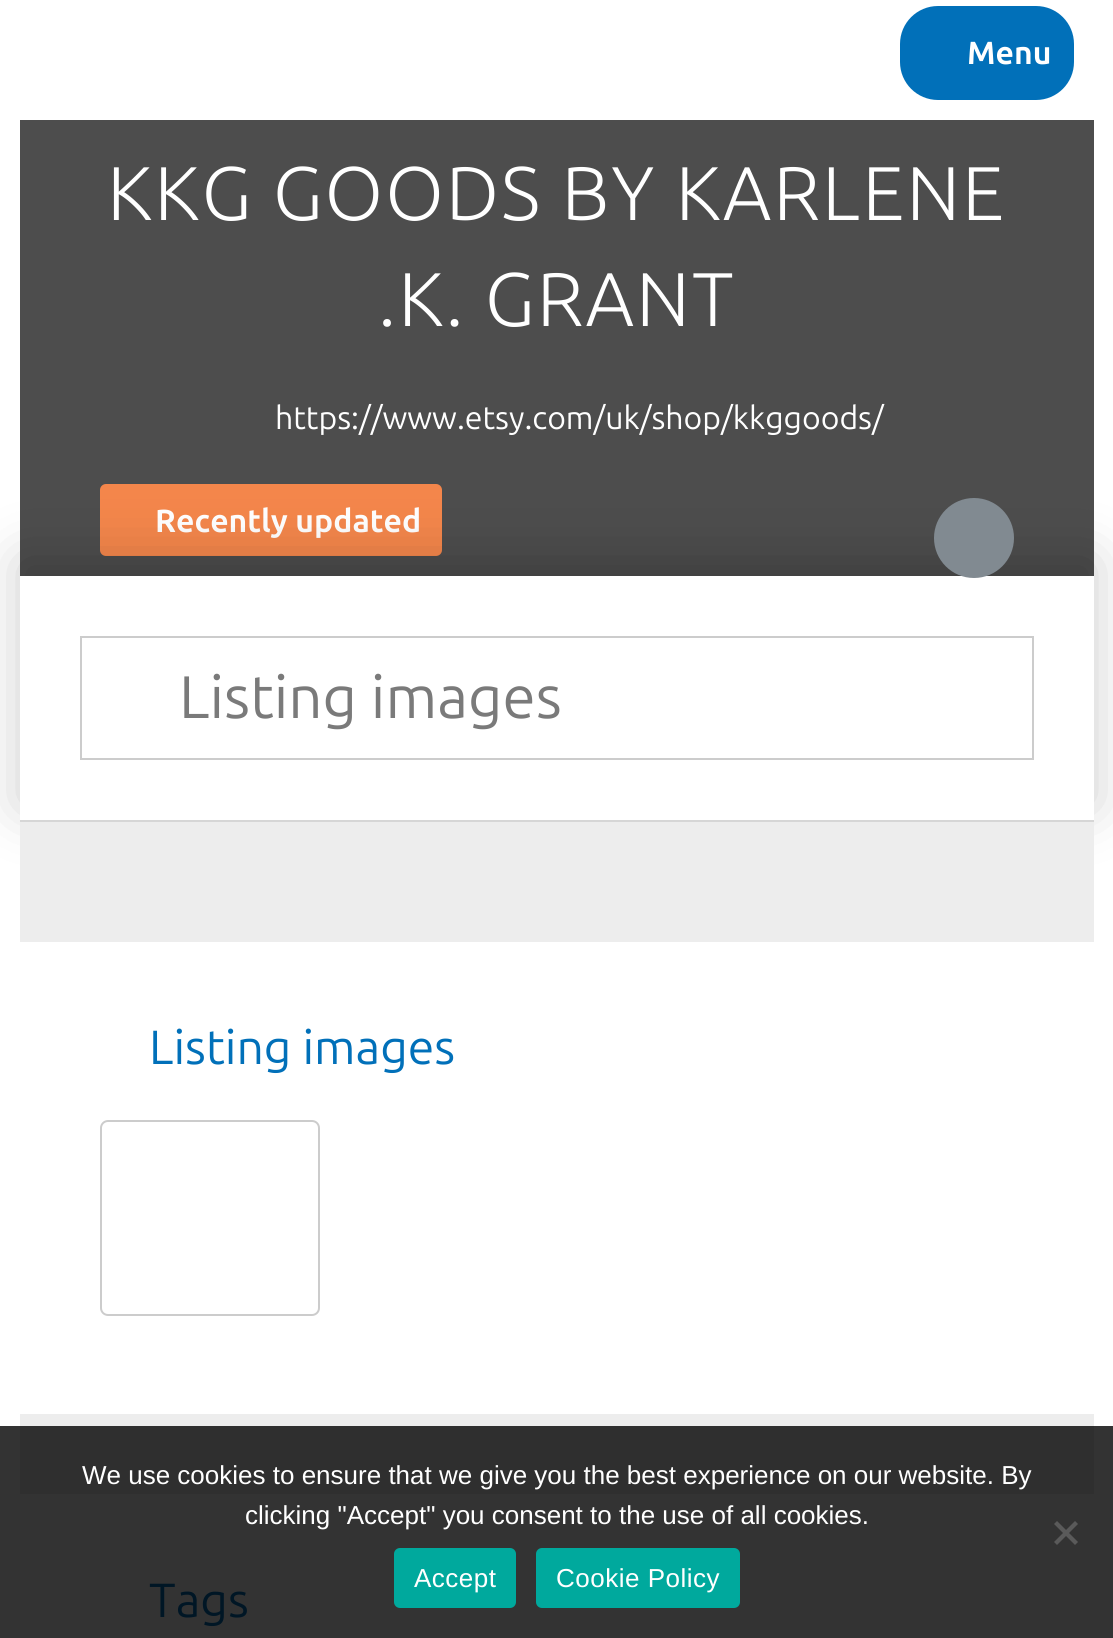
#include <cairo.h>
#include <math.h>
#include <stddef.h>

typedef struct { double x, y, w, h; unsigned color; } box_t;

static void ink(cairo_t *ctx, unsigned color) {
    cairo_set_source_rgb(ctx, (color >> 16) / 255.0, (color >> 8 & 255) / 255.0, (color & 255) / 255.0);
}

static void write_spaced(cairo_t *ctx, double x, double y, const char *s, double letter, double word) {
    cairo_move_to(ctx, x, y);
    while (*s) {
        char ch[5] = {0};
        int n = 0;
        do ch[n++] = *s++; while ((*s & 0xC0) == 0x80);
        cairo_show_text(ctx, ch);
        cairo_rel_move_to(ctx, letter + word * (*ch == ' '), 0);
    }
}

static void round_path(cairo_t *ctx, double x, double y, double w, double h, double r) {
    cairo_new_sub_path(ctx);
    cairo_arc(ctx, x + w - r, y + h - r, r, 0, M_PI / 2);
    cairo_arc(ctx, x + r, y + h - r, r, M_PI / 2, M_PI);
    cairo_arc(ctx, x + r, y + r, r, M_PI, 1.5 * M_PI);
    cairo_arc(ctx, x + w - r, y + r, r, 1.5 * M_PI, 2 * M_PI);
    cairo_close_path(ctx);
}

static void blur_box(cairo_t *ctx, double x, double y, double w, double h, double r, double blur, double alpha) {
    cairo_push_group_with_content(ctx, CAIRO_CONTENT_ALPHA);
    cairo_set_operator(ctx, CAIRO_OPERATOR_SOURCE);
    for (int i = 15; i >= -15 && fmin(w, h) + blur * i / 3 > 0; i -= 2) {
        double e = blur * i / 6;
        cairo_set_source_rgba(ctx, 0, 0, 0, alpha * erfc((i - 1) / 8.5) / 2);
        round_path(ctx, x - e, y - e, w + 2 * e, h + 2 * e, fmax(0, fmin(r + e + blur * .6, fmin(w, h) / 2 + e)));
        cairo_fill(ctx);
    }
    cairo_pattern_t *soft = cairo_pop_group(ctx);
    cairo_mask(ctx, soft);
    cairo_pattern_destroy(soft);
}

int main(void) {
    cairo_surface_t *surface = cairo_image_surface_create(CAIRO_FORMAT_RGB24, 1113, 1638);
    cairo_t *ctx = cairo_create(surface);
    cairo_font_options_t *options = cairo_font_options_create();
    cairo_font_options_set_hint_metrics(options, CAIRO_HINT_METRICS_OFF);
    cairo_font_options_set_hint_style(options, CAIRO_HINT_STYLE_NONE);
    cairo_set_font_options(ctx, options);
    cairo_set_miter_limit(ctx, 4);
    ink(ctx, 0xFFFFFF);
    cairo_paint(ctx);
    ink(ctx, 0x333333);
    cairo_rectangle(ctx, 0, 1426, 1113, 212);
    cairo_fill(ctx);
    ink(ctx, 0x0170B9);
    round_path(ctx, 900, 6, 174, 94, 38);
    cairo_fill(ctx);
    cairo_select_font_face(ctx, "Ubuntu", CAIRO_FONT_SLANT_NORMAL, CAIRO_FONT_WEIGHT_BOLD);
    cairo_set_font_size(ctx, 32);
    ink(ctx, 0xFFFFFF);
    cairo_move_to(ctx, 967, 64);
    cairo_show_text(ctx, "Menu");
    ink(ctx, 0x4D4D4D);
    cairo_rectangle(ctx, 20, 120, 1074, 456);
    cairo_fill(ctx);
    cairo_select_font_face(ctx, "Ubuntu Light", CAIRO_FONT_SLANT_NORMAL, CAIRO_FONT_WEIGHT_NORMAL);
    cairo_set_font_size(ctx, 76);
    ink(ctx, 0xFFFFFF);
    write_spaced(ctx, 107, 220, "KKG GOODS BY KARLENE", 2, 0);
    write_spaced(ctx, 378, 326, ".K. GRANT", 2, 0);
    cairo_select_font_face(ctx, "Ubuntu", CAIRO_FONT_SLANT_NORMAL, CAIRO_FONT_WEIGHT_NORMAL);
    cairo_set_font_size(ctx, 32);
    cairo_move_to(ctx, 275, 429);
    cairo_show_text(ctx, "https://www.etsy.com/uk/shop/kkggoods/");
    ink(ctx, 0xF4864B);
    round_path(ctx, 100, 484, 342, 72, 6);
    cairo_fill(ctx);
    cairo_select_font_face(ctx, "Ubuntu", CAIRO_FONT_SLANT_NORMAL, CAIRO_FONT_WEIGHT_BOLD);
    ink(ctx, 0xFFFFFF);
    cairo_move_to(ctx, 155, 532);
    cairo_show_text(ctx, "Recently updated");
    cairo_save(ctx);
    cairo_set_fill_rule(ctx, CAIRO_FILL_RULE_EVEN_ODD);
    cairo_new_path(ctx);
    cairo_move_to(ctx, 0, 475);
    cairo_line_to(ctx, 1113, 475);
    cairo_line_to(ctx, 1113, 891);
    cairo_line_to(ctx, 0, 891);
    cairo_close_path(ctx);
    cairo_move_to(ctx, 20, 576);
    cairo_line_to(ctx, 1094, 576);
    cairo_line_to(ctx, 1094, 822);
    cairo_line_to(ctx, 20, 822);
    cairo_close_path(ctx);
    cairo_clip(ctx);
    ink(ctx, 0x000000);
    blur_box(ctx, 20, 560, 1074, 246, 0, 28, 0.2);
    cairo_restore(ctx);
    ink(ctx, 0x818A91);
    cairo_arc(ctx, 974, 538, 40, 0, 2 * M_PI);
    cairo_fill(ctx);
    ink(ctx, 0xD6D6D6);
    cairo_rectangle(ctx, 20, 820, 1074, 2);
    cairo_fill(ctx);
    cairo_rectangle(ctx, 81, 637, 952, 122);
    ink(ctx, 0xCCCCCC);
    cairo_stroke(ctx);
    cairo_select_font_face(ctx, "Ubuntu", CAIRO_FONT_SLANT_NORMAL, CAIRO_FONT_WEIGHT_NORMAL);
    cairo_set_font_size(ctx, 60);
    ink(ctx, 0x7A7A7A);
    cairo_move_to(ctx, 179, 718);
    cairo_show_text(ctx, "Listing images");
    {
        static const box_t items[] = {
            {20, 822, 1074, 604, 0xEDEDED},
            {20, 1426, 1074, 68, 0x2F2F2F},
            {20, 942, 1074, 472, 0xFFFFFF},
        };
        for (size_t i = 0; i < sizeof items / sizeof *items; i++) {
            ink(ctx, items[i].color);
            cairo_rectangle(ctx, items[i].x, items[i].y, items[i].w, items[i].h);
            cairo_fill(ctx);
        }
    }
    cairo_set_font_size(ctx, 48);
    ink(ctx, 0x0170B9);
    cairo_move_to(ctx, 149, 1064);
    cairo_show_text(ctx, "Listing images");
    round_path(ctx, 101, 1121, 218, 194, 7);
    ink(ctx, 0xCCCCCC);
    cairo_stroke(ctx);
    ink(ctx, 0x001625);
    cairo_move_to(ctx, 149, 1617);
    cairo_show_text(ctx, "Tags");
    cairo_select_font_face(ctx, "Liberation Sans", CAIRO_FONT_SLANT_NORMAL, CAIRO_FONT_WEIGHT_NORMAL);
    cairo_set_font_size(ctx, 26);
    ink(ctx, 0xFFFFFF);
    cairo_move_to(ctx, 82, 1484);
    cairo_show_text(ctx, "We use cookies to ensure that we give you the best experience on our website. By");
    cairo_move_to(ctx, 245, 1524);
    cairo_show_text(ctx, "clicking \"Accept\" you consent to the use of all cookies.");
    ink(ctx, 0x5A5A5A);
    cairo_new_path(ctx);
    cairo_move_to(ctx, 1075, 1521);
    cairo_line_to(ctx, 1078, 1524);
    cairo_line_to(ctx, 1057, 1545);
    cairo_line_to(ctx, 1054, 1542);
    cairo_close_path(ctx);
    cairo_fill(ctx);
    cairo_new_path(ctx);
    cairo_move_to(ctx, 1054, 1524);
    cairo_line_to(ctx, 1057, 1521);
    cairo_line_to(ctx, 1078, 1542);
    cairo_line_to(ctx, 1075, 1545);
    cairo_close_path(ctx);
    cairo_fill(ctx);
    ink(ctx, 0x00A99D);
    round_path(ctx, 394, 1548, 122, 60, 6);
    cairo_fill(ctx);
    ink(ctx, 0xFFFFFF);
    write_spaced(ctx, 414, 1587, "Accept", 0.5, 0);
    ink(ctx, 0x00A99D);
    round_path(ctx, 536, 1548, 204, 60, 6);
    cairo_fill(ctx);
    ink(ctx, 0xFFFFFF);
    write_spaced(ctx, 556, 1587, "Cookie Policy", 0.5, 0);
    cairo_surface_write_to_png(surface, "image.png");
    cairo_font_options_destroy(options);
    cairo_destroy(ctx);
    cairo_surface_destroy(surface);
    return 0;
}
